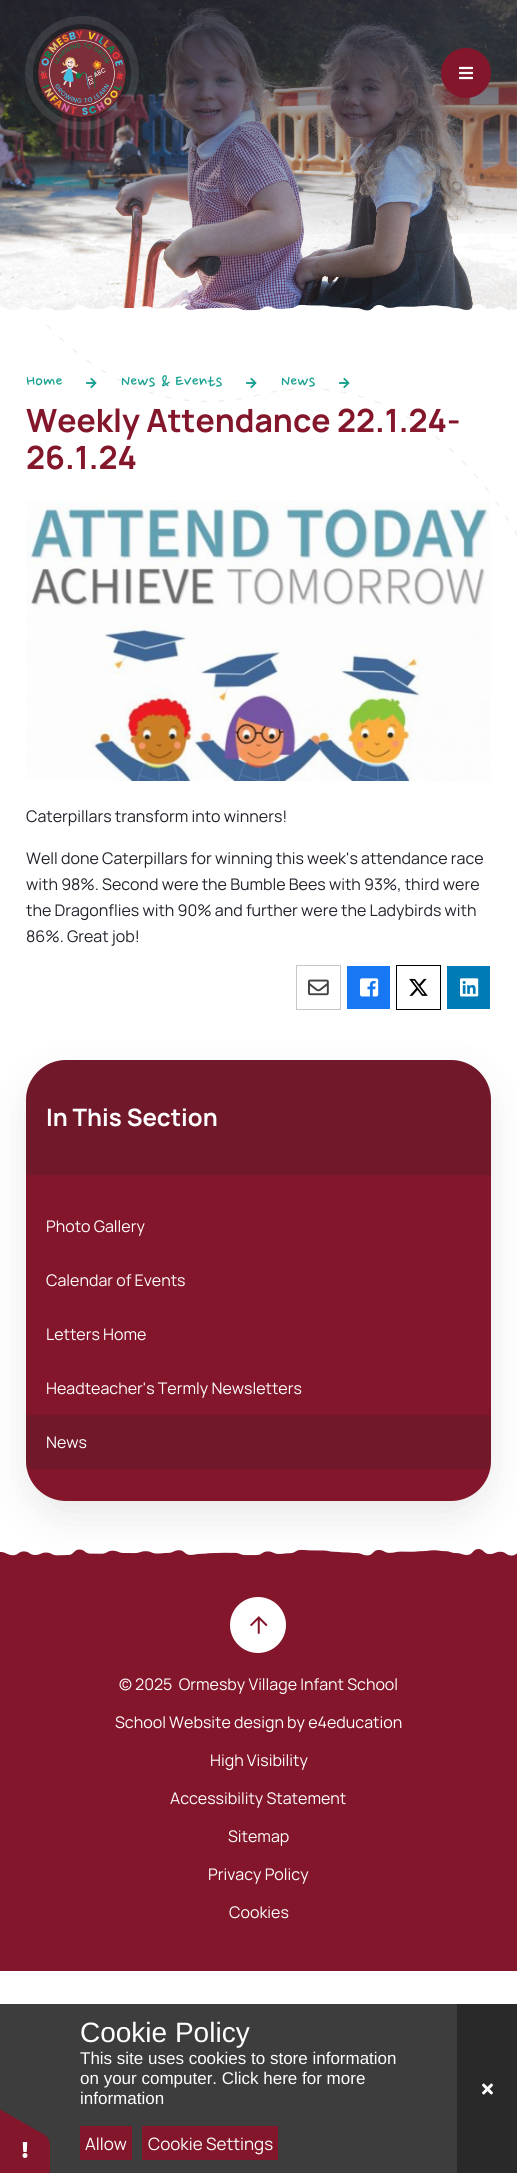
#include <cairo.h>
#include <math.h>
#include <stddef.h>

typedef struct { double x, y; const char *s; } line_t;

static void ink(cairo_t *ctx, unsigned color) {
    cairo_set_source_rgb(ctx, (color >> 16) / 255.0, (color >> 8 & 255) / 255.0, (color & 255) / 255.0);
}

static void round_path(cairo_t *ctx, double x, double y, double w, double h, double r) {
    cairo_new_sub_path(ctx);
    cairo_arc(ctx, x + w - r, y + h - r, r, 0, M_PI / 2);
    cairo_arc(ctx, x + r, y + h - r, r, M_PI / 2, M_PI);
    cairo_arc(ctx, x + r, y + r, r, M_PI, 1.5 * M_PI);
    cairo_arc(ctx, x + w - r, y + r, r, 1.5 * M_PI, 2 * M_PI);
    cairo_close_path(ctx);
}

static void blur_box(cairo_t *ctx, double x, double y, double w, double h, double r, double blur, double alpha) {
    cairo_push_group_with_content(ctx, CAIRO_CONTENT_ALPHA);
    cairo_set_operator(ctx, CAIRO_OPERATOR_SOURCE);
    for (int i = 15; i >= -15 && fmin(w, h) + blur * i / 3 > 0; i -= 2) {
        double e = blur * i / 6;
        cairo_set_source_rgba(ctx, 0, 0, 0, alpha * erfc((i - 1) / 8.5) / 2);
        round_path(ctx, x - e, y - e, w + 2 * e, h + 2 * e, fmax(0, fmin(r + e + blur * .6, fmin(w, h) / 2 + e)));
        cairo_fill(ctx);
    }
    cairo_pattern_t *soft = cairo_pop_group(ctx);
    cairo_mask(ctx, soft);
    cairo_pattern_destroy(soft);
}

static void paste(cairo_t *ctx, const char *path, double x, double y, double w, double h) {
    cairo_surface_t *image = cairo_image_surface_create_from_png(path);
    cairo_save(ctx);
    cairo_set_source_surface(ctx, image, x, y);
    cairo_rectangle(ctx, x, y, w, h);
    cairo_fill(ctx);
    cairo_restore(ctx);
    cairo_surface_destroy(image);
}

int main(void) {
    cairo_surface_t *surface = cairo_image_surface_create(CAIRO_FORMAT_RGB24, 517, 2173);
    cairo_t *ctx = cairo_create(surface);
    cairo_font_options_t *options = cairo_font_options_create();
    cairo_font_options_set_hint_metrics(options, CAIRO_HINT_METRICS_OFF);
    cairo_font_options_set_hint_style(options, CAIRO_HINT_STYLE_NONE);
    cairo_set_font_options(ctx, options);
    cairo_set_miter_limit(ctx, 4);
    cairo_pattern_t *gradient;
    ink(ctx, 0xFFFFFF);
    cairo_paint(ctx);
    paste(ctx, "media/1.png", 0, 0, 517, 311);
    gradient = cairo_pattern_create_linear(259, 240, 259, 0);
    cairo_pattern_add_color_stop_rgba(gradient, 0, 0.141, 0.125, 0.169, 0);
    cairo_pattern_add_color_stop_rgba(gradient, 1, 0.141, 0.125, 0.169, 0.8);
    cairo_set_source(ctx, gradient);
    cairo_pattern_destroy(gradient);
    cairo_rectangle(ctx, 0, 0, 517, 234);
    cairo_fill(ctx);
    cairo_arc(ctx, 82, 73, 53, 0, 2 * M_PI);
    cairo_set_source_rgba(ctx, 1, 1, 1, 0.1);
    cairo_set_line_width(ctx, 8);
    cairo_stroke(ctx);
    paste(ctx, "media/2.png", 37, 28, 90, 90);
    ink(ctx, 0x84162B);
    cairo_arc(ctx, 466, 73, 25, 0, 2 * M_PI);
    cairo_fill(ctx);
    paste(ctx, "media/3.png", 459, 66, 14, 14);
    paste(ctx, "media/4.png", 0, 304, 517, 16);
    cairo_save(ctx);
    cairo_new_path(ctx);
    cairo_move_to(ctx, 0, 320);
    cairo_line_to(ctx, 517, 320);
    cairo_line_to(ctx, 517, 541.5);
    cairo_line_to(ctx, 0, 541.5);
    cairo_close_path(ctx);
    cairo_clip(ctx);
    cairo_new_path(ctx);
    cairo_move_to(ctx, -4.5, 254);
    cairo_curve_to(ctx, -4.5, 254, 87.5, 437.5, 258, 395);
    cairo_curve_to(ctx, 428.5, 352.5, 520, 540.5, 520, 540.5);
    ink(ctx, 0xF5EBED);
    cairo_set_line_width(ctx, 1.3);
    cairo_set_line_cap(ctx, CAIRO_LINE_CAP_ROUND);
    cairo_set_dash(ctx, (double[]){5.04, 12.61}, 2, 0);
    cairo_stroke(ctx);
    cairo_restore(ctx);
    cairo_select_font_face(ctx, "Nanum Pen", CAIRO_FONT_SLANT_NORMAL, CAIRO_FONT_WEIGHT_NORMAL);
    cairo_set_font_size(ctx, 20);
    ink(ctx, 0x179F8F);
    cairo_move_to(ctx, 26, 388);
    cairo_show_text(ctx, "Home");
    paste(ctx, "media/5.png", 86, 377, 11, 12);
    cairo_move_to(ctx, 121, 388);
    cairo_show_text(ctx, "News & Events");
    paste(ctx, "media/5.png", 246, 377, 11, 12);
    cairo_move_to(ctx, 281, 388);
    cairo_show_text(ctx, "News");
    paste(ctx, "media/5.png", 339, 377, 11, 12);
    cairo_select_font_face(ctx, "Manrope", CAIRO_FONT_SLANT_NORMAL, CAIRO_FONT_WEIGHT_BOLD);
    cairo_set_font_size(ctx, 32);
    ink(ctx, 0x84162B);
    cairo_move_to(ctx, 26, 432);
    cairo_show_text(ctx, "Weekly Attendance 22.1.24-");
    cairo_move_to(ctx, 26, 469);
    cairo_show_text(ctx, "26.1.24");
    paste(ctx, "media/6.png", 26, 500, 465, 281);
    cairo_select_font_face(ctx, "Manrope", CAIRO_FONT_SLANT_NORMAL, CAIRO_FONT_WEIGHT_NORMAL);
    cairo_set_font_size(ctx, 16);
    ink(ctx, 0x24202B);
    {
        static const line_t items[] = {
            {26, 822, "Caterpillars transform into winners!"},
            {26, 864, "Well done Caterpillars for winning this week's attendance race"},
            {26, 890, "with 98%. Second were the Bumble Bees with 93%, third were"},
            {26, 916, "the Dragonflies with 90% and further were the Ladybirds with"},
            {26, 942, "86%. Great job!"},
        };
        for (size_t i = 0; i < sizeof items / sizeof *items; i++) {
            cairo_move_to(ctx, items[i].x, items[i].y);
            cairo_show_text(ctx, items[i].s);
        }
    }
    cairo_rectangle(ctx, 296.5, 965.5, 44, 44);
    ink(ctx, 0xC7C7C7);
    cairo_set_line_width(ctx, 1);
    cairo_stroke(ctx);
    paste(ctx, "media/7.png", 308, 979, 21, 17);
    ink(ctx, 0x1877F2);
    cairo_rectangle(ctx, 347, 966, 43, 43);
    cairo_fill(ctx);
    paste(ctx, "media/8.png", 360, 978, 19, 19);
    cairo_rectangle(ctx, 396.5, 965.5, 44, 44);
    ink(ctx, 0x000000);
    cairo_stroke(ctx);
    paste(ctx, "media/9.png", 409, 978, 19, 18);
    ink(ctx, 0x007BB5);
    cairo_rectangle(ctx, 447, 966, 43, 43);
    cairo_fill(ctx);
    paste(ctx, "media/10.png", 460, 978, 19, 19);
    ink(ctx, 0x84162B);
    cairo_rectangle(ctx, 0, 1565, 517, 406);
    cairo_fill(ctx);
    ink(ctx, 0x23202B);
    blur_box(ctx, 26, 1076, 465, 441, 40, 20, 0.1);
    ink(ctx, 0x84162B);
    round_path(ctx, 26, 1060, 465, 441, 40);
    cairo_fill(ctx);
    cairo_set_source_rgba(ctx, 0.141, 0.125, 0.169, 0.2);
    cairo_new_path(ctx);
    cairo_move_to(ctx, 66, 1060);
    cairo_line_to(ctx, 451, 1060);
    cairo_curve_to(ctx, 473, 1060, 491, 1078, 491, 1100);
    cairo_line_to(ctx, 491, 1175);
    cairo_line_to(ctx, 26, 1175);
    cairo_line_to(ctx, 26, 1100);
    cairo_curve_to(ctx, 26, 1078, 44, 1060, 66, 1060);
    cairo_close_path(ctx);
    cairo_fill(ctx);
    cairo_select_font_face(ctx, "Manrope", CAIRO_FONT_SLANT_NORMAL, CAIRO_FONT_WEIGHT_BOLD);
    cairo_set_font_size(ctx, 24);
    ink(ctx, 0xFFFFFF);
    cairo_move_to(ctx, 46, 1126);
    cairo_show_text(ctx, "In This Section");
    cairo_select_font_face(ctx, "Manrope", CAIRO_FONT_SLANT_NORMAL, CAIRO_FONT_WEIGHT_NORMAL);
    cairo_set_font_size(ctx, 16);
    {
        static const line_t items[] = {
            {46, 1232, "Photo Gallery"},
            {46, 1286, "Calendar of Events"},
            {46, 1340, "Letters Home"},
            {46, 1394, "Headteacher's Termly Newsletters"},
        };
        for (size_t i = 0; i < sizeof items / sizeof *items; i++) {
            cairo_move_to(ctx, items[i].x, items[i].y);
            cairo_show_text(ctx, items[i].s);
        }
    }
    cairo_save(ctx);
    round_path(ctx, 26, 1060, 465, 441, 40);
    cairo_clip(ctx);
    cairo_set_source_rgba(ctx, 0.141, 0.125, 0.169, 0.2);
    cairo_rectangle(ctx, 26, 1415, 465, 54);
    cairo_fill(ctx);
    cairo_restore(ctx);
    cairo_move_to(ctx, 46, 1448);
    cairo_show_text(ctx, "News");
    paste(ctx, "media/11.png", 0, 1549, 517, 16);
    cairo_arc(ctx, 258, 1625, 28, 0, 2 * M_PI);
    cairo_fill(ctx);
    paste(ctx, "media/12.png", 250, 1616, 18, 18);
    {
        static const line_t items[] = {
            {119, 1690, "© 2025  Ormesby Village Infant School"},
            {115, 1728, "School Website design by e4education"},
            {210, 1766, "High Visibility"},
            {170, 1804, "Accessibility Statement"},
            {228, 1842, "Sitemap"},
            {208, 1880, "Privacy Policy"},
            {229, 1918, "Cookies"},
        };
        for (size_t i = 0; i < sizeof items / sizeof *items; i++) {
            cairo_move_to(ctx, items[i].x, items[i].y);
            cairo_show_text(ctx, items[i].s);
        }
    }
    ink(ctx, 0x3D3D3D);
    cairo_rectangle(ctx, 0, 2004, 457, 169);
    cairo_fill(ctx);
    ink(ctx, 0x84162B);
    cairo_new_path(ctx);
    cairo_move_to(ctx, 50, 2146);
    cairo_line_to(ctx, 50, 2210);
    cairo_curve_to(ctx, 50, 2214, 48, 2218, 46, 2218);
    cairo_line_to(ctx, -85, 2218);
    cairo_curve_to(ctx, -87, 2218, -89, 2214, -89, 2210);
    cairo_line_to(ctx, -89, 2146);
    cairo_curve_to(ctx, -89, 2141, -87, 2138, -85, 2138);
    cairo_line_to(ctx, 46, 2138);
    cairo_curve_to(ctx, 48, 2138, 50, 2141, 50, 2146);
    cairo_close_path(ctx);
    cairo_fill(ctx);
    cairo_new_path(ctx);
    cairo_move_to(ctx, -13, 2102);
    cairo_line_to(ctx, 43, 2134);
    cairo_curve_to(ctx, 47, 2136, 49, 2139, 48, 2141);
    cairo_line_to(ctx, -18, 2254);
    cairo_curve_to(ctx, -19, 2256, -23, 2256, -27, 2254);
    cairo_line_to(ctx, -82, 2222);
    cairo_curve_to(ctx, -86, 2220, -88, 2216, -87, 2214);
    cairo_line_to(ctx, -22, 2101);
    cairo_curve_to(ctx, -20, 2099, -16, 2100, -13, 2102);
    cairo_close_path(ctx);
    cairo_fill(ctx);
    paste(ctx, "media/13.png", 22, 2142, 6, 16);
    cairo_select_font_face(ctx, "Liberation Sans", CAIRO_FONT_SLANT_NORMAL, CAIRO_FONT_WEIGHT_NORMAL);
    cairo_set_font_size(ctx, 28);
    ink(ctx, 0xFFFFFF);
    cairo_move_to(ctx, 80, 2042);
    cairo_show_text(ctx, "Cookie Policy");
    cairo_set_font_size(ctx, 17);
    {
        static const line_t items[] = {
            {80, 2064, "This site uses cookies to store information"},
            {80, 2084, "on your computer. Click here for more"},
            {80, 2104, "information"},
        };
        for (size_t i = 0; i < sizeof items / sizeof *items; i++) {
            cairo_move_to(ctx, items[i].x, items[i].y);
            cairo_show_text(ctx, items[i].s);
        }
    }
    ink(ctx, 0x84162B);
    cairo_rectangle(ctx, 80, 2126, 52, 34);
    cairo_fill(ctx);
    cairo_select_font_face(ctx, "Manrope", CAIRO_FONT_SLANT_NORMAL, CAIRO_FONT_WEIGHT_NORMAL);
    ink(ctx, 0xFFFFFF);
    cairo_move_to(ctx, 85, 2150);
    cairo_show_text(ctx, "Allow");
    ink(ctx, 0x84162B);
    cairo_rectangle(ctx, 142, 2126, 136, 34);
    cairo_fill(ctx);
    ink(ctx, 0xFFFFFF);
    cairo_move_to(ctx, 148, 2150);
    cairo_show_text(ctx, "Cookie Settings");
    ink(ctx, 0x292929);
    cairo_rectangle(ctx, 457, 2004, 60, 169);
    cairo_fill(ctx);
    paste(ctx, "media/14.png", 482, 2083, 11, 12);
    cairo_surface_write_to_png(surface, "image.png");
    cairo_font_options_destroy(options);
    cairo_destroy(ctx);
    cairo_surface_destroy(surface);
    return 0;
}
